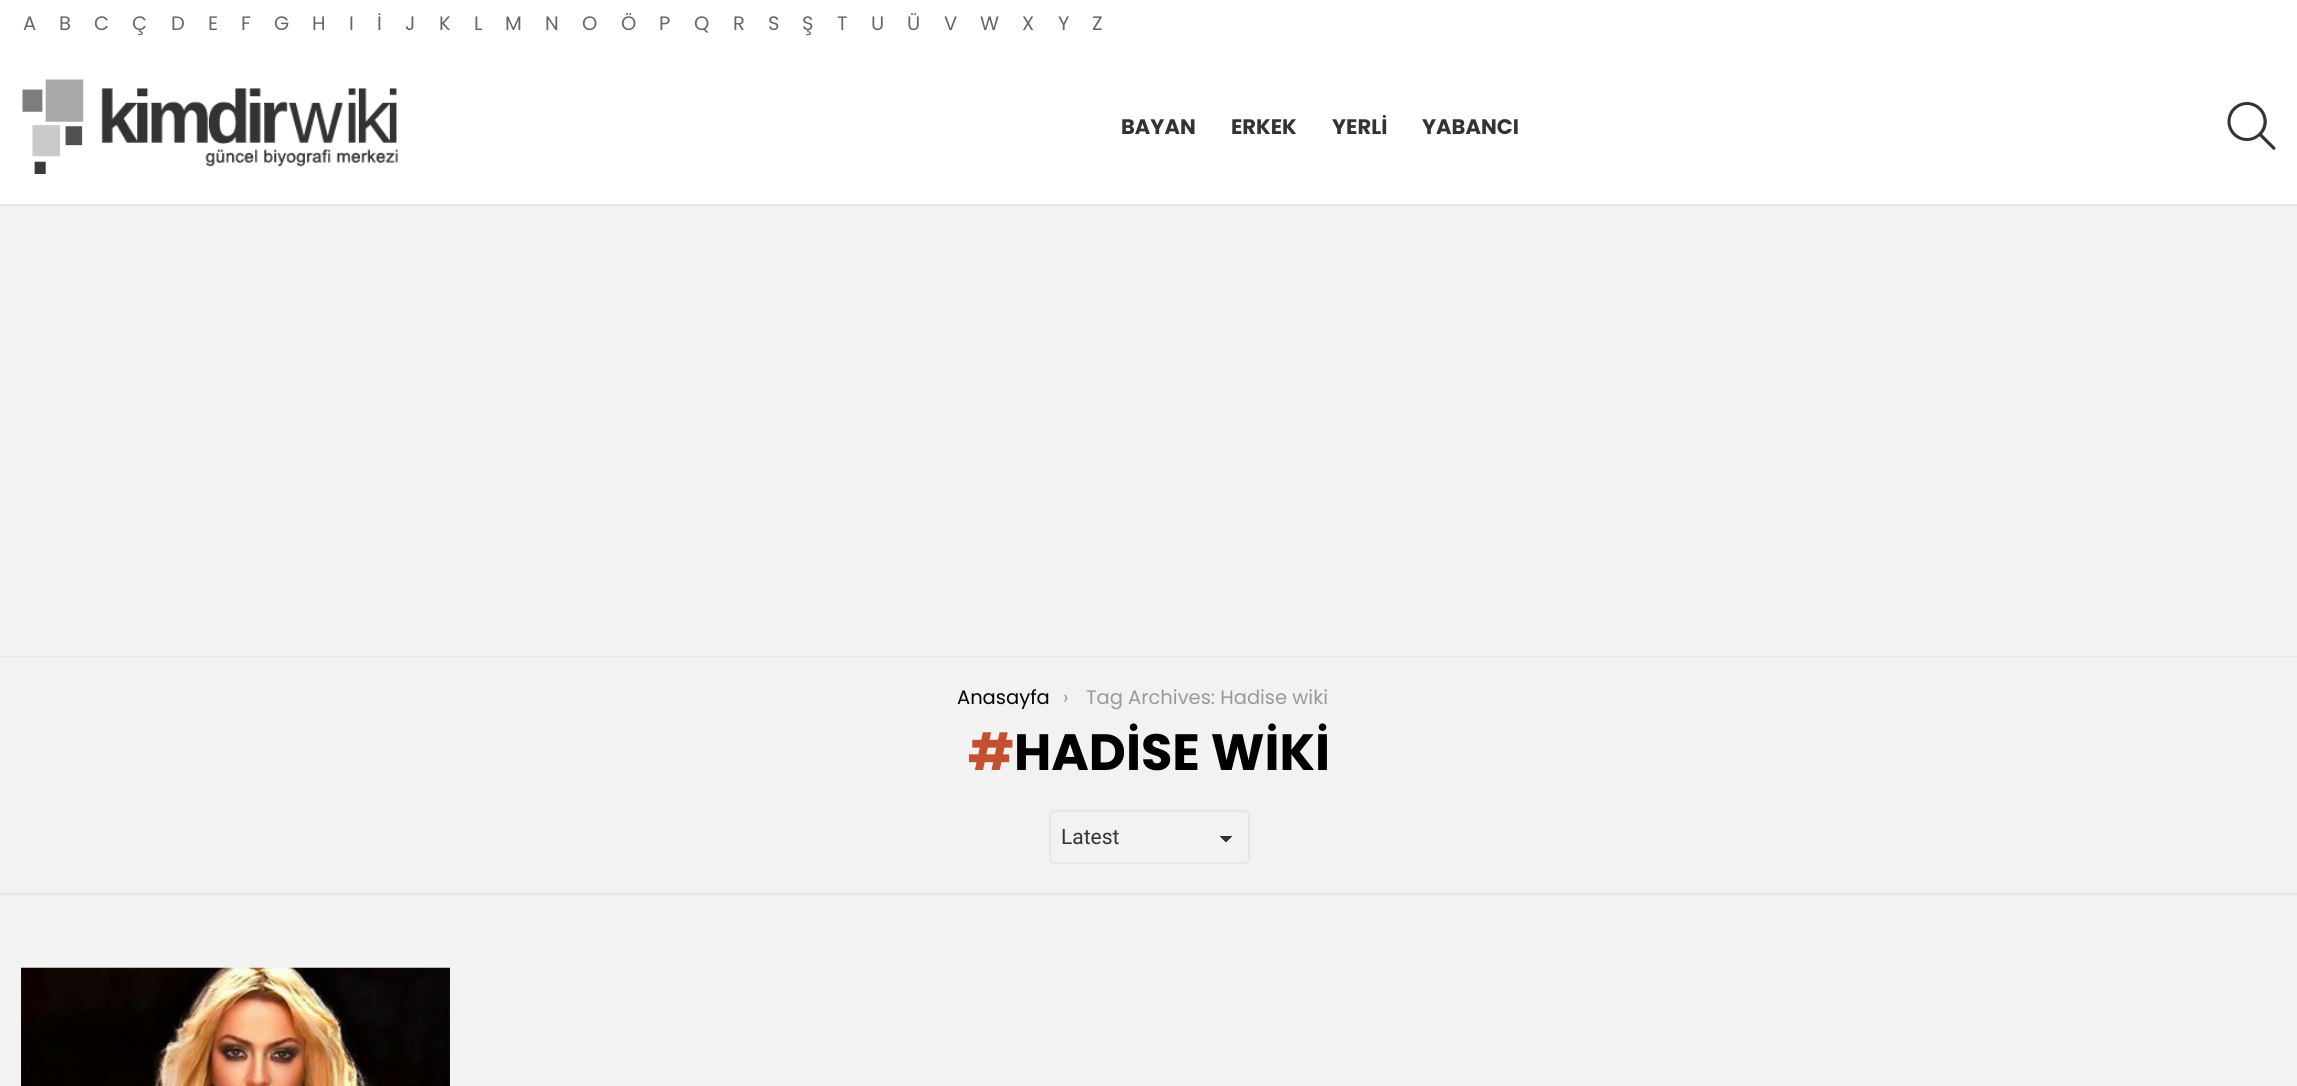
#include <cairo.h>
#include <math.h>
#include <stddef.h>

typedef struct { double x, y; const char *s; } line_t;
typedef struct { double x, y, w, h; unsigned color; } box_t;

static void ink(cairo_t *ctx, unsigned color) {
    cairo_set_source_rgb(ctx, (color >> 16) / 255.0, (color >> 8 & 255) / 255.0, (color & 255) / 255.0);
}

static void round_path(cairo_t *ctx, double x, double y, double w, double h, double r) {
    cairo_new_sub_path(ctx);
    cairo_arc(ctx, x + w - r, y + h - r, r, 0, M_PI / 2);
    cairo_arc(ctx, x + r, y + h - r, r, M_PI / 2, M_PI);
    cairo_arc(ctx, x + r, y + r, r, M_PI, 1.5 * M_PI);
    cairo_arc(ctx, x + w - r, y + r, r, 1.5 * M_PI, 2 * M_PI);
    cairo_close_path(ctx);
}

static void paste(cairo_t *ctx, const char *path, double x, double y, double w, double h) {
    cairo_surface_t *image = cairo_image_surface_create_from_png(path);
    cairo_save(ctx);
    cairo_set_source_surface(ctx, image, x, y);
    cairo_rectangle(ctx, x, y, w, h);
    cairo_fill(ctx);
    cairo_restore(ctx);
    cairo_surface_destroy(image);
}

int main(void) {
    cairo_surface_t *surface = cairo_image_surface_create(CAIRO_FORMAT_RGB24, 2297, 1086);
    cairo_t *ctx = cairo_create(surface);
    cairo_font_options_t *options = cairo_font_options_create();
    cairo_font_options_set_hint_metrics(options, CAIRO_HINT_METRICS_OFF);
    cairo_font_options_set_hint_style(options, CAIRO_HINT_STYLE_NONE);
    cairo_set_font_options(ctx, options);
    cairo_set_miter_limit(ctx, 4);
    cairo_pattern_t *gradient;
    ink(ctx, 0xFFFFFF);
    cairo_paint(ctx);
    cairo_select_font_face(ctx, "Poppins", CAIRO_FONT_SLANT_NORMAL, CAIRO_FONT_WEIGHT_NORMAL);
    cairo_set_font_size(ctx, 19.5);
    ink(ctx, 0x666666);
    {
        static const line_t items[] = {
            {23, 30, "A"},
            {59, 30, "B"},
            {94, 30, "C"},
            {132, 30, "Ç"},
            {171, 30, "D"},
            {208, 30, "E"},
            {241, 30, "F"},
            {274, 30, "G"},
            {312, 30, "H"},
            {349, 30, "I"},
            {377, 30, "İ"},
            {405, 30, "J"},
            {439, 30, "K"},
            {474, 30, "L"},
            {505, 30, "M"},
            {545, 30, "N"},
            {582, 30, "O"},
            {621, 30, "Ö"},
            {659, 30, "P"},
            {694, 30, "Q"},
            {733, 30, "R"},
            {768, 30, "S"},
            {802, 30, "Ş"},
            {837, 30, "T"},
            {871, 30, "U"},
            {907, 30, "Ü"},
            {944, 30, "V"},
            {980, 30, "W"},
            {1022, 30, "X"},
            {1058, 30, "Y"},
            {1092, 30, "Z"},
        };
        for (size_t i = 0; i < sizeof items / sizeof *items; i++) {
            cairo_move_to(ctx, items[i].x, items[i].y);
            cairo_show_text(ctx, items[i].s);
        }
    }
    paste(ctx, "media/1.png", 22, 79, 376, 95);
    cairo_select_font_face(ctx, "Poppins", CAIRO_FONT_SLANT_NORMAL, CAIRO_FONT_WEIGHT_BOLD);
    cairo_set_font_size(ctx, 21);
    ink(ctx, 0x333333);
    {
        static const line_t items[] = {
            {1121, 134, "BAYAN"},
            {1231, 134, "ERKEK"},
            {1332, 134, "YERLİ"},
            {1422, 134, "YABANCI"},
        };
        for (size_t i = 0; i < sizeof items / sizeof *items; i++) {
            cairo_move_to(ctx, items[i].x, items[i].y);
            cairo_show_text(ctx, items[i].s);
        }
    }
    paste(ctx, "media/2.png", 2227, 102, 49, 48);
    {
        static const box_t items[] = {
            {0, 204, 2297, 2, 0xE6E6E6},
            {0, 656, 2297, 1, 0xE6E6E6},
            {0, 206, 2297, 450, 0xF2F2F2},
            {0, 657, 2297, 236, 0xF2F2F2},
            {0, 893, 2297, 2, 0xE6E6E6},
        };
        for (size_t i = 0; i < sizeof items / sizeof *items; i++) {
            ink(ctx, items[i].color);
            cairo_rectangle(ctx, items[i].x, items[i].y, items[i].w, items[i].h);
            cairo_fill(ctx);
        }
    }
    cairo_select_font_face(ctx, "Poppins", CAIRO_FONT_SLANT_NORMAL, CAIRO_FONT_WEIGHT_NORMAL);
    cairo_set_font_size(ctx, 19.5);
    ink(ctx, 0x000000);
    cairo_move_to(ctx, 957, 704);
    cairo_show_text(ctx, "Anasayfa");
    ink(ctx, 0x999999);
    cairo_move_to(ctx, 1063, 704);
    cairo_show_text(ctx, "›");
    cairo_move_to(ctx, 1086, 704);
    cairo_show_text(ctx, "Tag Archives: Hadise wiki");
    cairo_select_font_face(ctx, "Poppins", CAIRO_FONT_SLANT_NORMAL, CAIRO_FONT_WEIGHT_BOLD);
    cairo_set_font_size(ctx, 51);
    ink(ctx, 0xC3512F);
    cairo_move_to(ctx, 968, 770);
    cairo_show_text(ctx, "#");
    ink(ctx, 0x000000);
    cairo_move_to(ctx, 1014, 770);
    cairo_show_text(ctx, "HADİSE WİKİ");
    gradient = cairo_pattern_create_linear(1226, 835, 1233, 842);
    cairo_pattern_add_color_stop_rgba(gradient, 0.5, 0.2, 0.2, 0.2, 1);
    cairo_pattern_add_color_stop_rgba(gradient, 0.5, 0.949, 0.949, 0.949, 1);
    cairo_set_source(ctx, gradient);
    cairo_pattern_destroy(gradient);
    cairo_rectangle(ctx, 1226, 836, 7, 6);
    cairo_fill(ctx);
    gradient = cairo_pattern_create_linear(1218, 842, 1225, 835);
    cairo_pattern_add_color_stop_rgba(gradient, 0.5, 0.949, 0.949, 0.949, 1);
    cairo_pattern_add_color_stop_rgba(gradient, 0.5, 0.2, 0.2, 0.2, 1);
    cairo_set_source(ctx, gradient);
    cairo_pattern_destroy(gradient);
    cairo_rectangle(ctx, 1218, 836, 8, 6);
    cairo_fill(ctx);
    round_path(ctx, 1050, 811, 199, 52, 5);
    ink(ctx, 0xE6E6E6);
    cairo_stroke(ctx);
    cairo_select_font_face(ctx, "Roboto", CAIRO_FONT_SLANT_NORMAL, CAIRO_FONT_WEIGHT_NORMAL);
    cairo_set_font_size(ctx, 21);
    ink(ctx, 0x333333);
    cairo_move_to(ctx, 1061, 844);
    cairo_show_text(ctx, "Latest");
    ink(ctx, 0xF2F2F2);
    cairo_rectangle(ctx, 0, 895, 2297, 191);
    cairo_fill(ctx);
    paste(ctx, "media/3.png", 21, 967, 429, 119);
    cairo_surface_write_to_png(surface, "image.png");
    cairo_font_options_destroy(options);
    cairo_destroy(ctx);
    cairo_surface_destroy(surface);
    return 0;
}
